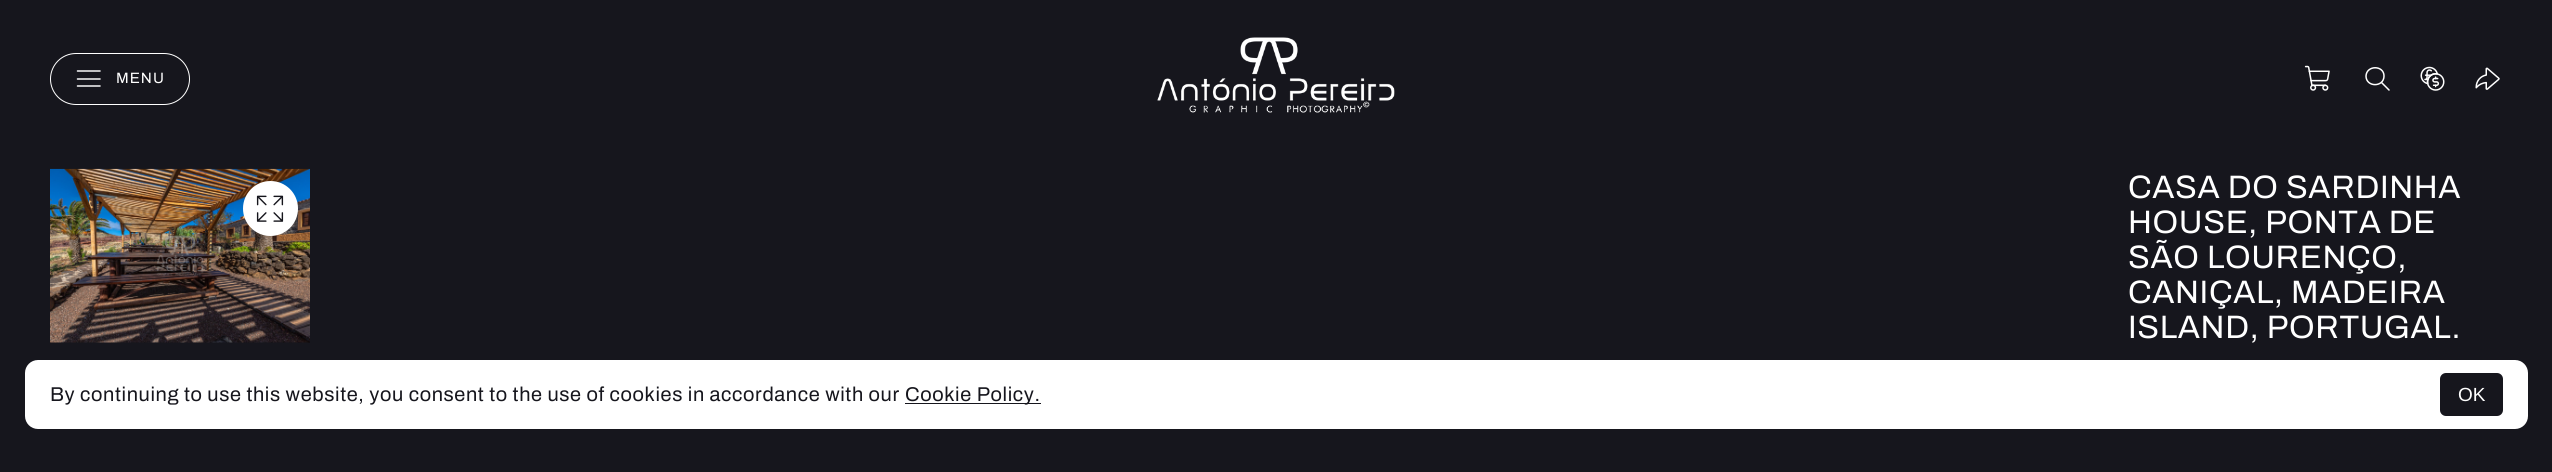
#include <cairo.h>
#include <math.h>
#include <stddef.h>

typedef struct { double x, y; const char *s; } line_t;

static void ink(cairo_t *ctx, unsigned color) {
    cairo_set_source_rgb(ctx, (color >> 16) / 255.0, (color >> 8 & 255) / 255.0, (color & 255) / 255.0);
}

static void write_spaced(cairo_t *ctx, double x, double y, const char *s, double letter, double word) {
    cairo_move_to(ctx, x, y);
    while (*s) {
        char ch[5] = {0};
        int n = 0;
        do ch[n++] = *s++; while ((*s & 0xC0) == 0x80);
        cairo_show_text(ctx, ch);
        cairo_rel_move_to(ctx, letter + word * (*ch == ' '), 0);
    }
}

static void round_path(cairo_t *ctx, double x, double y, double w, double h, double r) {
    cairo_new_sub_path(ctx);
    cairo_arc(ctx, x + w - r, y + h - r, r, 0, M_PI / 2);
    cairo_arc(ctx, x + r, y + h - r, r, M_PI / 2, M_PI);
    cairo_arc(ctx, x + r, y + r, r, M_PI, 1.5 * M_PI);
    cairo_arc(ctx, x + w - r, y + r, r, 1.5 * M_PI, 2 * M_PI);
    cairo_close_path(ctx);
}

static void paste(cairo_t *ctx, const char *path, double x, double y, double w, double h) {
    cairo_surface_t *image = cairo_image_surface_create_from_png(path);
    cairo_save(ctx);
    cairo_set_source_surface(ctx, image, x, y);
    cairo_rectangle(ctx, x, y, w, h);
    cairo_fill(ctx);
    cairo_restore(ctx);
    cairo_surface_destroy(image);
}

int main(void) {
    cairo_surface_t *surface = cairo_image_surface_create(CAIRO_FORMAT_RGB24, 2552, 472);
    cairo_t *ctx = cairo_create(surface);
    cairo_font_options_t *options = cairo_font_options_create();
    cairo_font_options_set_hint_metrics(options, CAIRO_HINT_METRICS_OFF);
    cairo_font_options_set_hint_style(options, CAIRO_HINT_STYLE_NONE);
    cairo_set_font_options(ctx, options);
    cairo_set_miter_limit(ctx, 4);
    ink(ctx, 0x16161D);
    cairo_paint(ctx);
    round_path(ctx, 50.5, 53.5, 139, 51, 25.5);
    ink(ctx, 0xFFFFFF);
    cairo_set_line_width(ctx, 1);
    cairo_stroke(ctx);
    cairo_new_path(ctx);
    cairo_move_to(ctx, 77.5, 79);
    cairo_line_to(ctx, 100, 79);
    cairo_move_to(ctx, 77.5, 71);
    cairo_line_to(ctx, 100, 71);
    cairo_move_to(ctx, 77.5, 86);
    cairo_line_to(ctx, 100, 86);
    cairo_set_line_width(ctx, 1.5);
    cairo_set_line_cap(ctx, CAIRO_LINE_CAP_ROUND);
    cairo_set_line_join(ctx, CAIRO_LINE_JOIN_ROUND);
    cairo_stroke(ctx);
    cairo_select_font_face(ctx, "Archivo", CAIRO_FONT_SLANT_NORMAL, CAIRO_FONT_WEIGHT_NORMAL);
    cairo_set_font_size(ctx, 15);
    write_spaced(ctx, 116, 83, "MENU", 1, 0);
    paste(ctx, "media/1.png", 1157, 37, 238, 76);
    paste(ctx, "media/2.png", 2304, 65, 26, 26);
    cairo_new_path(ctx);
    cairo_move_to(ctx, 2389, 90);
    cairo_line_to(ctx, 2381.5, 82.5);
    cairo_move_to(ctx, 2384, 76);
    cairo_curve_to(ctx, 2384, 87.5, 2366, 87.5, 2366, 76);
    cairo_curve_to(ctx, 2366.5, 65, 2384, 65, 2384, 76);
    cairo_close_path(ctx);
    cairo_stroke(ctx);
    paste(ctx, "media/3.png", 2420, 66, 25, 25);
    paste(ctx, "media/4.png", 2475, 67, 25, 23);
    paste(ctx, "media/5.png", 50, 168, 260, 175);
    cairo_arc(ctx, 270.5, 208.5, 27.5, 0, 2 * M_PI);
    cairo_fill(ctx);
    paste(ctx, "media/6.png", 256, 195, 28, 27);
    cairo_set_font_size(ctx, 32.5);
    {
        static const line_t items[] = {
            {2128, 198, "CASA DO SARDINHA"},
            {2128, 233, "HOUSE, PONTA DE"},
            {2128, 268, "SÃO LOURENÇO,"},
            {2128, 303, "CANIÇAL, MADEIRA"},
            {2128, 338, "ISLAND, PORTUGAL."},
        };
        for (size_t i = 0; i < sizeof items / sizeof *items; i++) {
            write_spaced(ctx, items[i].x, items[i].y, items[i].s, 0.62, 0);
        }
    }
    round_path(ctx, 25, 360, 2503, 69, 13);
    cairo_fill(ctx);
    cairo_set_font_size(ctx, 20);
    ink(ctx, 0x16161D);
    write_spaced(ctx, 50, 401, "By continuing to use this website, you consent to the use of cookies in accordance with our", 0.62, 0);
    cairo_rectangle(ctx, 905, 403, 136, 1);
    cairo_fill(ctx);
    write_spaced(ctx, 905, 401, "Cookie Policy.", 0.62, 0);
    round_path(ctx, 2440, 373, 63, 43, 6);
    cairo_fill(ctx);
    cairo_select_font_face(ctx, "Liberation Sans", CAIRO_FONT_SLANT_NORMAL, CAIRO_FONT_WEIGHT_NORMAL);
    cairo_set_font_size(ctx, 19);
    ink(ctx, 0xFFFFFF);
    cairo_move_to(ctx, 2458, 401);
    cairo_show_text(ctx, "OK");
    cairo_surface_write_to_png(surface, "image.png");
    cairo_font_options_destroy(options);
    cairo_destroy(ctx);
    cairo_surface_destroy(surface);
    return 0;
}
